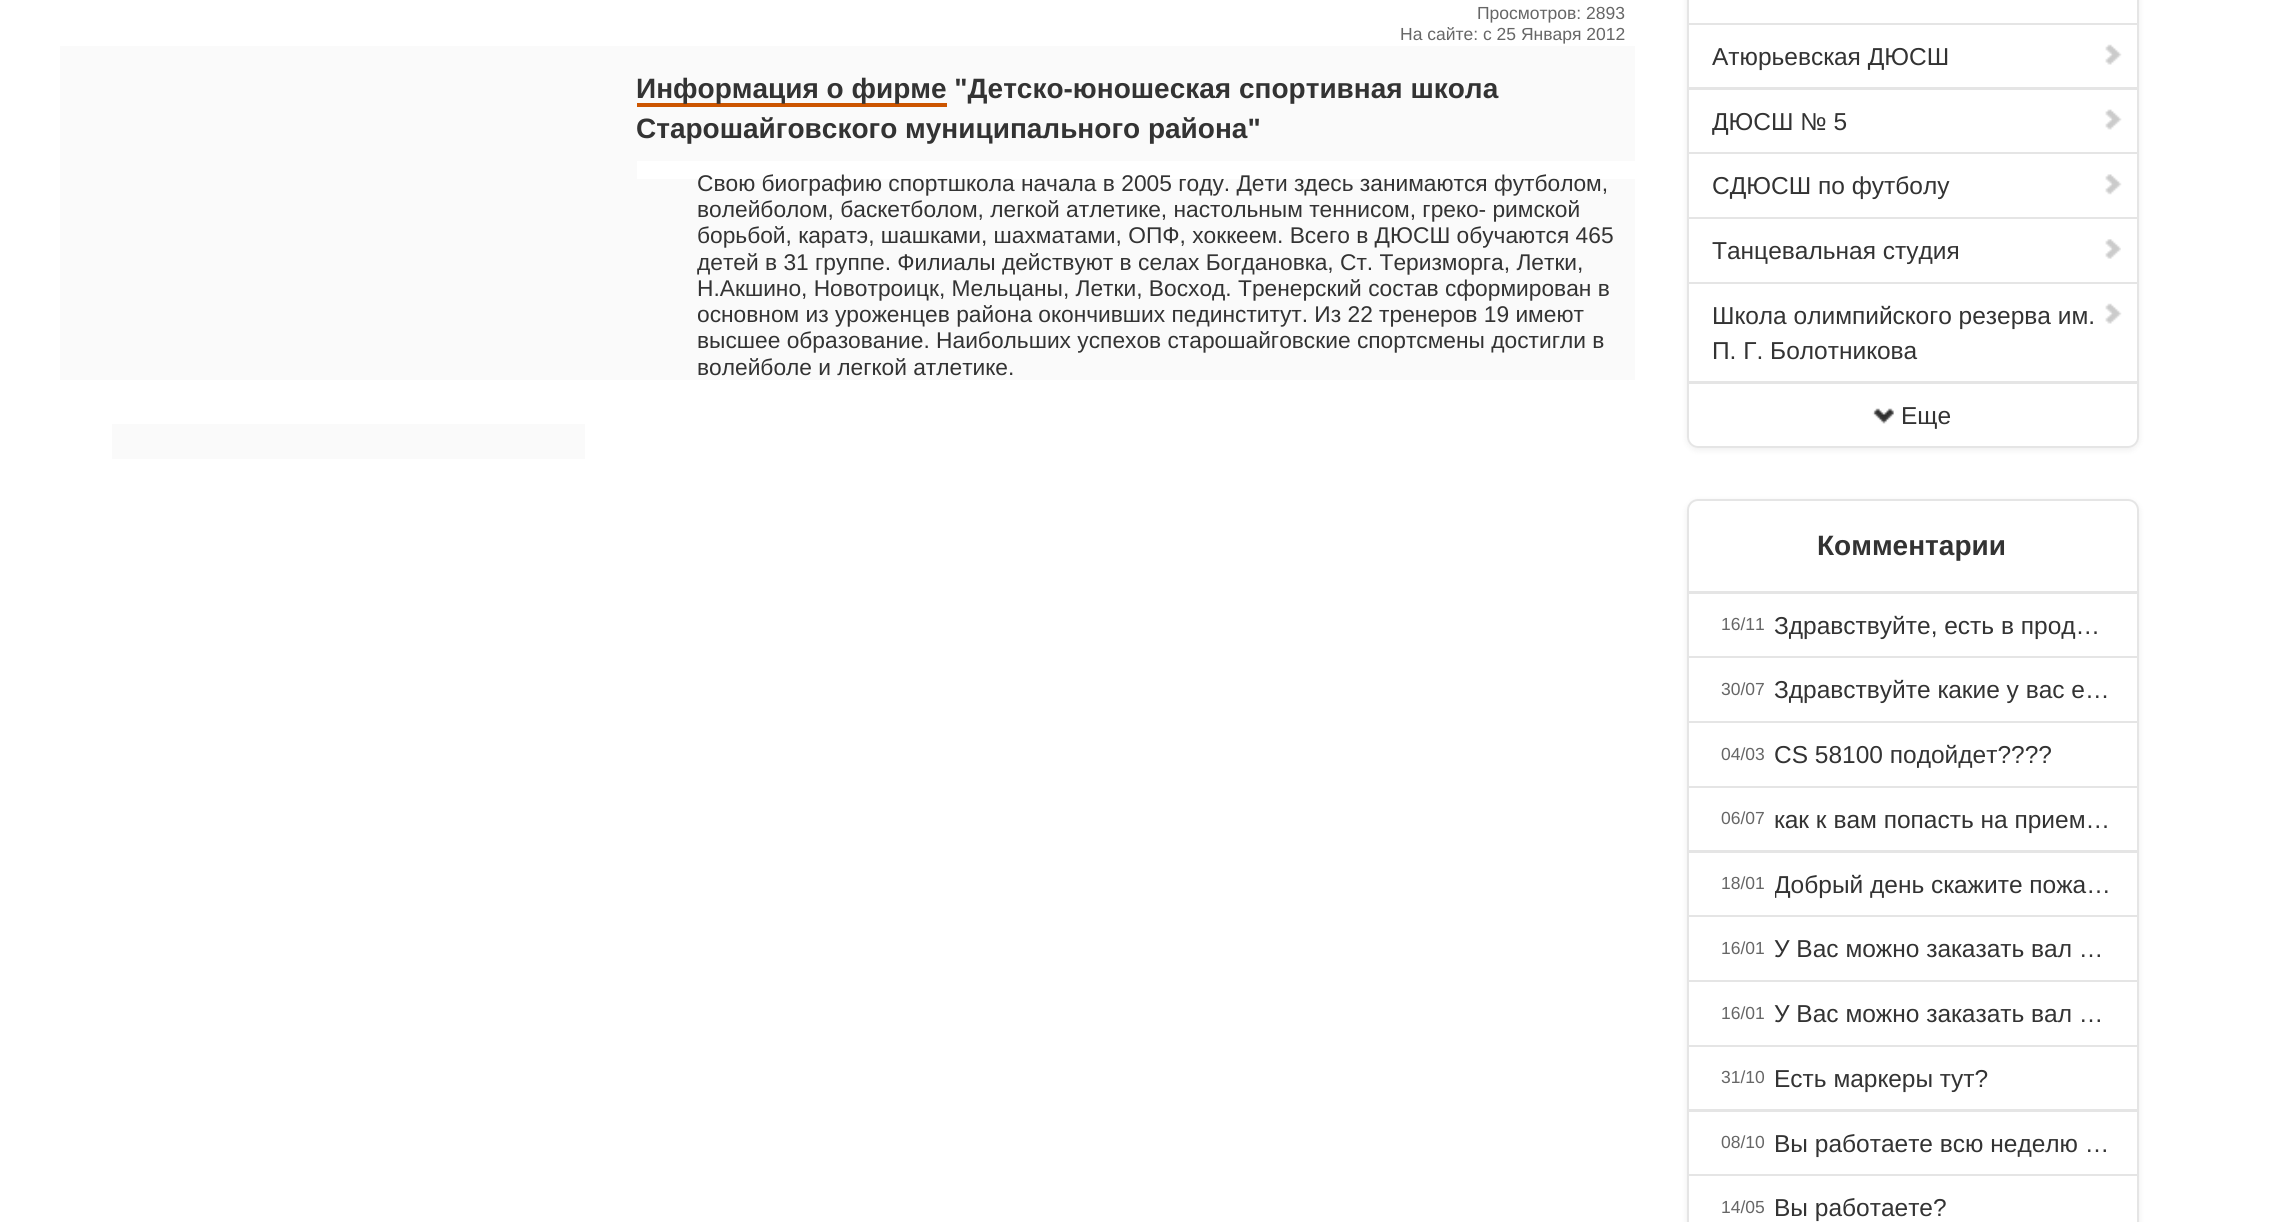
#include <cairo.h>
#include <math.h>
#include <stddef.h>

typedef struct { double x, y; const char *s; } line_t;

static void ink(cairo_t *ctx, unsigned color) {
    cairo_set_source_rgb(ctx, (color >> 16) / 255.0, (color >> 8 & 255) / 255.0, (color & 255) / 255.0);
}

static void round_path(cairo_t *ctx, double x, double y, double w, double h, double r) {
    cairo_new_sub_path(ctx);
    cairo_arc(ctx, x + w - r, y + h - r, r, 0, M_PI / 2);
    cairo_arc(ctx, x + r, y + h - r, r, M_PI / 2, M_PI);
    cairo_arc(ctx, x + r, y + r, r, M_PI, 1.5 * M_PI);
    cairo_arc(ctx, x + w - r, y + r, r, 1.5 * M_PI, 2 * M_PI);
    cairo_close_path(ctx);
}

static void blur_box(cairo_t *ctx, double x, double y, double w, double h, double r, double blur, double alpha) {
    cairo_push_group_with_content(ctx, CAIRO_CONTENT_ALPHA);
    cairo_set_operator(ctx, CAIRO_OPERATOR_SOURCE);
    for (int i = 15; i >= -15 && fmin(w, h) + blur * i / 3 > 0; i -= 2) {
        double e = blur * i / 6;
        cairo_set_source_rgba(ctx, 0, 0, 0, alpha * erfc((i - 1) / 8.5) / 2);
        round_path(ctx, x - e, y - e, w + 2 * e, h + 2 * e, fmax(0, fmin(r + e + blur * .6, fmin(w, h) / 2 + e)));
        cairo_fill(ctx);
    }
    cairo_pattern_t *soft = cairo_pop_group(ctx);
    cairo_mask(ctx, soft);
    cairo_pattern_destroy(soft);
}

static void paste(cairo_t *ctx, const char *path, double x, double y, double w, double h) {
    cairo_surface_t *image = cairo_image_surface_create_from_png(path);
    cairo_save(ctx);
    cairo_set_source_surface(ctx, image, x, y);
    cairo_rectangle(ctx, x, y, w, h);
    cairo_fill(ctx);
    cairo_restore(ctx);
    cairo_surface_destroy(image);
}

int main(void) {
    cairo_surface_t *surface = cairo_image_surface_create(CAIRO_FORMAT_RGB24, 2269, 1222);
    cairo_t *ctx = cairo_create(surface);
    cairo_font_options_t *options = cairo_font_options_create();
    cairo_font_options_set_hint_metrics(options, CAIRO_HINT_METRICS_OFF);
    cairo_font_options_set_hint_style(options, CAIRO_HINT_STYLE_NONE);
    cairo_set_font_options(ctx, options);
    cairo_set_miter_limit(ctx, 4);
    ink(ctx, 0xFFFFFF);
    cairo_paint(ctx);
    cairo_select_font_face(ctx, "Liberation Sans", CAIRO_FONT_SLANT_NORMAL, CAIRO_FONT_WEIGHT_NORMAL);
    cairo_set_font_size(ctx, 17.5);
    ink(ctx, 0x666666);
    cairo_move_to(ctx, 1477, 19);
    cairo_show_text(ctx, "Просмотров: 2893");
    cairo_move_to(ctx, 1400, 40);
    cairo_show_text(ctx, "На сайте: с 25 Января 2012");
    ink(ctx, 0xFAFAFA);
    cairo_rectangle(ctx, 60, 46, 1575, 334);
    cairo_fill(ctx);
    ink(ctx, 0xCC5500);
    cairo_rectangle(ctx, 637, 103, 310, 4);
    cairo_fill(ctx);
    cairo_select_font_face(ctx, "Liberation Sans", CAIRO_FONT_SLANT_NORMAL, CAIRO_FONT_WEIGHT_BOLD);
    cairo_set_font_size(ctx, 28);
    ink(ctx, 0x333333);
    cairo_move_to(ctx, 636, 98);
    cairo_show_text(ctx, "Информация о фирме \"Детско-юношеская спортивная школа");
    cairo_move_to(ctx, 636, 138);
    cairo_show_text(ctx, "Старошайговского муниципального района\"");
    ink(ctx, 0xFFFFFF);
    cairo_rectangle(ctx, 637, 161, 998, 18);
    cairo_fill(ctx);
    cairo_select_font_face(ctx, "Liberation Sans", CAIRO_FONT_SLANT_NORMAL, CAIRO_FONT_WEIGHT_NORMAL);
    cairo_set_font_size(ctx, 22.75);
    ink(ctx, 0x333333);
    {
        static const line_t items[] = {
            {697, 191, "Свою биографию спортшкола начала в 2005 году. Дети здесь занимаются футболом,"},
            {697, 217, "волейболом, баскетболом, легкой атлетике, настольным теннисом, греко- римской"},
            {697, 243, "борьбой, каратэ, шашками, шахматами, ОПФ, хоккеем. Всего в ДЮСШ обучаются 465"},
            {697, 270, "детей в 31 группе. Филиалы действуют в селах Богдановка, Ст. Теризморга, Летки,"},
            {697, 296, "Н.Акшино, Новотроицк, Мельцаны, Летки, Восход. Тренерский состав сформирован в"},
            {697, 322, "основном из уроженцев района окончивших пединститут. Из 22 тренеров 19 имеют"},
            {697, 348, "высшее образование. Наибольших успехов старошайговские спортсмены достигли в"},
            {697, 375, "волейболе и легкой атлетике."},
        };
        for (size_t i = 0; i < sizeof items / sizeof *items; i++) {
            cairo_move_to(ctx, items[i].x, items[i].y);
            cairo_show_text(ctx, items[i].s);
        }
    }
    ink(ctx, 0xFAFAFA);
    cairo_rectangle(ctx, 112, 424, 473, 35);
    cairo_fill(ctx);
    ink(ctx, 0x000000);
    blur_box(ctx, 1687, -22, 452, 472, 11, 3.5, 0.07);
    ink(ctx, 0xFFFFFF);
    round_path(ctx, 1687, -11, 452, 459, 11);
    cairo_fill(ctx);
    cairo_rectangle(ctx, 1688, -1, 450, 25);
    ink(ctx, 0xE5E5E5);
    cairo_stroke(ctx);
    cairo_rectangle(ctx, 1688, 24, 450, 64);
    cairo_stroke(ctx);
    cairo_set_font_size(ctx, 24.5);
    ink(ctx, 0x333333);
    cairo_move_to(ctx, 1712, 65);
    cairo_show_text(ctx, "Атюрьевская ДЮСШ");
    paste(ctx, "media/1.png", 2105, 44, 17, 21);
    cairo_rectangle(ctx, 1688, 89, 450, 64);
    ink(ctx, 0xE5E5E5);
    cairo_stroke(ctx);
    ink(ctx, 0x333333);
    cairo_move_to(ctx, 1712, 130);
    cairo_show_text(ctx, "ДЮСШ № 5");
    paste(ctx, "media/2.png", 2105, 109, 17, 21);
    cairo_rectangle(ctx, 1688, 153, 450, 65);
    ink(ctx, 0xE5E5E5);
    cairo_stroke(ctx);
    ink(ctx, 0x333333);
    cairo_move_to(ctx, 1712, 194);
    cairo_show_text(ctx, "СДЮСШ по футболу");
    paste(ctx, "media/3.png", 2105, 174, 17, 21);
    cairo_rectangle(ctx, 1688, 218, 450, 65);
    ink(ctx, 0xE5E5E5);
    cairo_stroke(ctx);
    ink(ctx, 0x333333);
    cairo_move_to(ctx, 1712, 259);
    cairo_show_text(ctx, "Танцевальная студия");
    paste(ctx, "media/4.png", 2105, 239, 16, 20);
    cairo_rectangle(ctx, 1688, 283, 450, 99);
    ink(ctx, 0xE5E5E5);
    cairo_stroke(ctx);
    ink(ctx, 0x333333);
    cairo_move_to(ctx, 1712, 324);
    cairo_show_text(ctx, "Школа олимпийского резерва им.");
    paste(ctx, "media/1.png", 2105, 303, 17, 21);
    cairo_move_to(ctx, 1712, 359);
    cairo_show_text(ctx, "П. Г. Болотникова");
    cairo_new_path(ctx);
    cairo_move_to(ctx, 1688, 383);
    cairo_line_to(ctx, 2138, 383);
    cairo_line_to(ctx, 2138, 437);
    cairo_curve_to(ctx, 2138, 442.5, 2133.5, 447, 2128, 447);
    cairo_line_to(ctx, 1698, 447);
    cairo_curve_to(ctx, 1692.5, 447, 1688, 442.5, 1688, 437);
    cairo_close_path(ctx);
    ink(ctx, 0xE5E5E5);
    cairo_stroke(ctx);
    paste(ctx, "media/5.png", 1872, 408, 22, 16);
    ink(ctx, 0x333333);
    cairo_move_to(ctx, 1901, 424);
    cairo_show_text(ctx, "Еще");
    ink(ctx, 0x000000);
    blur_box(ctx, 1687, 501, 452, 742, 11, 3.5, 0.07);
    ink(ctx, 0xFFFFFF);
    round_path(ctx, 1687, 499, 452, 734, 11);
    cairo_fill(ctx);
    cairo_new_path(ctx);
    cairo_move_to(ctx, 1698, 500);
    cairo_line_to(ctx, 2128, 500);
    cairo_curve_to(ctx, 2133.5, 500, 2138, 504.5, 2138, 510);
    cairo_line_to(ctx, 2138, 592);
    cairo_line_to(ctx, 1688, 592);
    cairo_line_to(ctx, 1688, 510);
    cairo_curve_to(ctx, 1688, 504.5, 1692.5, 500, 1698, 500);
    cairo_close_path(ctx);
    ink(ctx, 0xE5E5E5);
    cairo_stroke(ctx);
    cairo_select_font_face(ctx, "Liberation Sans", CAIRO_FONT_SLANT_NORMAL, CAIRO_FONT_WEIGHT_BOLD);
    cairo_set_font_size(ctx, 28);
    ink(ctx, 0x333333);
    cairo_move_to(ctx, 1817, 555);
    cairo_show_text(ctx, "Комментарии");
    cairo_rectangle(ctx, 1688, 593, 450, 64);
    ink(ctx, 0xE5E5E5);
    cairo_stroke(ctx);
    cairo_select_font_face(ctx, "Liberation Sans", CAIRO_FONT_SLANT_NORMAL, CAIRO_FONT_WEIGHT_NORMAL);
    cairo_set_font_size(ctx, 17.5);
    ink(ctx, 0x666666);
    cairo_move_to(ctx, 1721, 630);
    cairo_show_text(ctx, "16/11");
    cairo_set_font_size(ctx, 24.5);
    ink(ctx, 0x333333);
    cairo_move_to(ctx, 1774, 634);
    cairo_show_text(ctx, "Здравствуйте, есть в прод…");
    cairo_rectangle(ctx, 1688, 657, 450, 65);
    ink(ctx, 0xE5E5E5);
    cairo_stroke(ctx);
    cairo_set_font_size(ctx, 17.5);
    ink(ctx, 0x666666);
    cairo_move_to(ctx, 1721, 695);
    cairo_show_text(ctx, "30/07");
    cairo_set_font_size(ctx, 24.5);
    ink(ctx, 0x333333);
    cairo_move_to(ctx, 1774, 698);
    cairo_show_text(ctx, "Здравствуйте какие у вас е…");
    cairo_rectangle(ctx, 1688, 722, 450, 65);
    ink(ctx, 0xE5E5E5);
    cairo_stroke(ctx);
    cairo_set_font_size(ctx, 17.5);
    ink(ctx, 0x666666);
    cairo_move_to(ctx, 1721, 760);
    cairo_show_text(ctx, "04/03");
    cairo_set_font_size(ctx, 24.5);
    ink(ctx, 0x333333);
    cairo_move_to(ctx, 1774, 763);
    cairo_show_text(ctx, "CS 58100 подойдет?\077?\077");
    cairo_rectangle(ctx, 1688, 787, 450, 64);
    ink(ctx, 0xE5E5E5);
    cairo_stroke(ctx);
    cairo_set_font_size(ctx, 17.5);
    ink(ctx, 0x666666);
    cairo_move_to(ctx, 1721, 824);
    cairo_show_text(ctx, "06/07");
    cairo_set_font_size(ctx, 24.5);
    ink(ctx, 0x333333);
    cairo_move_to(ctx, 1774, 828);
    cairo_show_text(ctx, "как к вам попасть на прием…");
    cairo_rectangle(ctx, 1688, 852, 450, 64);
    ink(ctx, 0xE5E5E5);
    cairo_stroke(ctx);
    cairo_set_font_size(ctx, 17.5);
    ink(ctx, 0x666666);
    cairo_move_to(ctx, 1721, 889);
    cairo_show_text(ctx, "18/01");
    cairo_save(ctx);
    cairo_rectangle(ctx, 1775, 866, 337, 35);
    cairo_clip(ctx);
    cairo_set_font_size(ctx, 24.5);
    ink(ctx, 0x333333);
    cairo_move_to(ctx, 1774, 893);
    cairo_show_text(ctx, "Добрый день скажите пожа…");
    cairo_restore(ctx);
    cairo_rectangle(ctx, 1688, 916, 450, 65);
    ink(ctx, 0xE5E5E5);
    cairo_stroke(ctx);
    ink(ctx, 0x666666);
    cairo_move_to(ctx, 1721, 954);
    cairo_show_text(ctx, "16/01");
    cairo_set_font_size(ctx, 24.5);
    ink(ctx, 0x333333);
    cairo_move_to(ctx, 1774, 957);
    cairo_show_text(ctx, "У Вас можно заказать вал …");
    cairo_rectangle(ctx, 1688, 981, 450, 65);
    ink(ctx, 0xE5E5E5);
    cairo_stroke(ctx);
    cairo_set_font_size(ctx, 17.5);
    ink(ctx, 0x666666);
    cairo_move_to(ctx, 1721, 1019);
    cairo_show_text(ctx, "16/01");
    cairo_set_font_size(ctx, 24.5);
    ink(ctx, 0x333333);
    cairo_move_to(ctx, 1774, 1022);
    cairo_show_text(ctx, "У Вас можно заказать вал …");
    cairo_rectangle(ctx, 1688, 1046, 450, 64);
    ink(ctx, 0xE5E5E5);
    cairo_stroke(ctx);
    cairo_set_font_size(ctx, 17.5);
    ink(ctx, 0x666666);
    cairo_move_to(ctx, 1721, 1083);
    cairo_show_text(ctx, "31/10");
    cairo_set_font_size(ctx, 24.5);
    ink(ctx, 0x333333);
    cairo_move_to(ctx, 1774, 1087);
    cairo_show_text(ctx, "Есть маркеры тут?");
    cairo_rectangle(ctx, 1688, 1111, 450, 64);
    ink(ctx, 0xE5E5E5);
    cairo_stroke(ctx);
    cairo_set_font_size(ctx, 17.5);
    ink(ctx, 0x666666);
    cairo_move_to(ctx, 1721, 1148);
    cairo_show_text(ctx, "08/10");
    cairo_set_font_size(ctx, 24.5);
    ink(ctx, 0x333333);
    cairo_move_to(ctx, 1774, 1152);
    cairo_show_text(ctx, "Вы работаете всю неделю …");
    cairo_rectangle(ctx, 1688, 1175, 450, 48);
    ink(ctx, 0xE5E5E5);
    cairo_stroke(ctx);
    cairo_set_font_size(ctx, 17.5);
    ink(ctx, 0x666666);
    cairo_move_to(ctx, 1721, 1213);
    cairo_show_text(ctx, "14/05");
    cairo_set_font_size(ctx, 24.5);
    ink(ctx, 0x333333);
    cairo_move_to(ctx, 1774, 1216);
    cairo_show_text(ctx, "Вы работаете?");
    cairo_surface_write_to_png(surface, "image.png");
    cairo_font_options_destroy(options);
    cairo_destroy(ctx);
    cairo_surface_destroy(surface);
    return 0;
}
